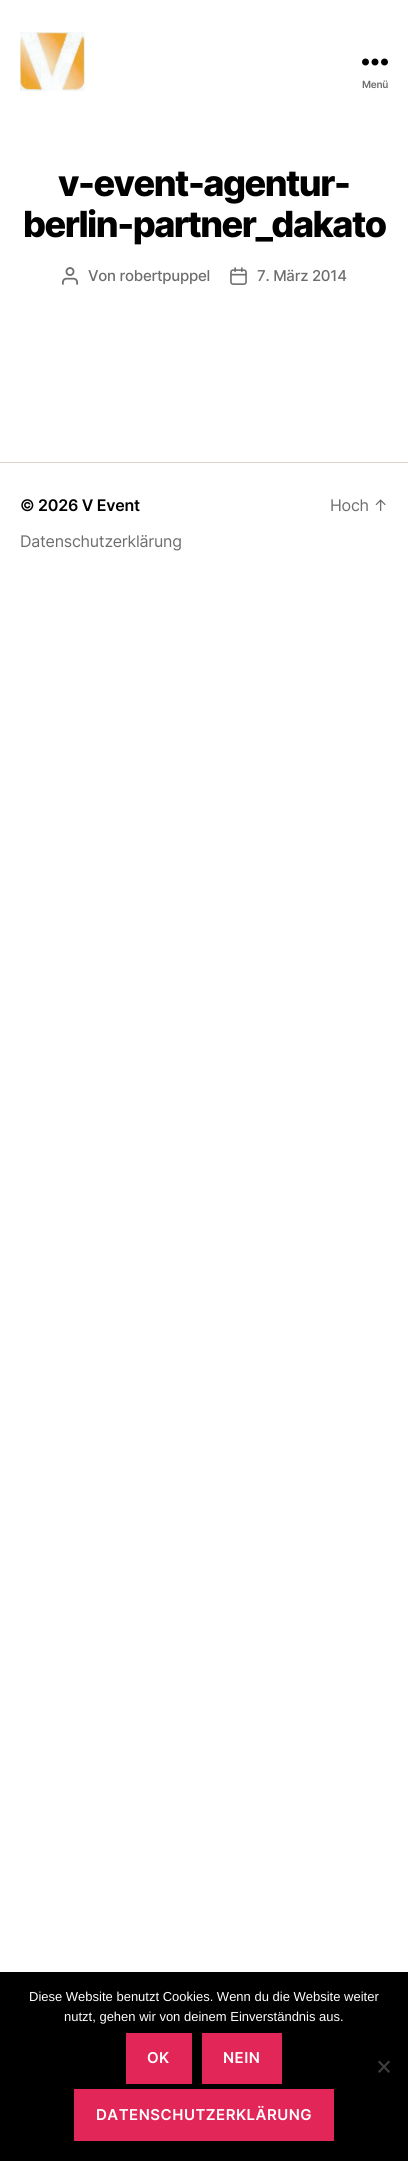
#include <cairo.h>
#include <math.h>
#include <stddef.h>


static void ink(cairo_t *ctx, unsigned color) {
    cairo_set_source_rgb(ctx, (color >> 16) / 255.0, (color >> 8 & 255) / 255.0, (color & 255) / 255.0);
}

static void write_spaced(cairo_t *ctx, double x, double y, const char *s, double letter, double word) {
    cairo_move_to(ctx, x, y);
    while (*s) {
        char ch[5] = {0};
        int n = 0;
        do ch[n++] = *s++; while ((*s & 0xC0) == 0x80);
        cairo_show_text(ctx, ch);
        cairo_rel_move_to(ctx, letter + word * (*ch == ' '), 0);
    }
}

static void paste(cairo_t *ctx, const char *path, double x, double y, double w, double h) {
    cairo_surface_t *image = cairo_image_surface_create_from_png(path);
    cairo_save(ctx);
    cairo_set_source_surface(ctx, image, x, y);
    cairo_rectangle(ctx, x, y, w, h);
    cairo_fill(ctx);
    cairo_restore(ctx);
    cairo_surface_destroy(image);
}

int main(void) {
    cairo_surface_t *surface = cairo_image_surface_create(CAIRO_FORMAT_RGB24, 408, 2161);
    cairo_t *ctx = cairo_create(surface);
    cairo_font_options_t *options = cairo_font_options_create();
    cairo_font_options_set_hint_metrics(options, CAIRO_HINT_METRICS_OFF);
    cairo_font_options_set_hint_style(options, CAIRO_HINT_STYLE_NONE);
    cairo_set_font_options(ctx, options);
    cairo_set_miter_limit(ctx, 4);
    ink(ctx, 0xFFFFFF);
    cairo_paint(ctx);
    paste(ctx, "media/1.png", 20, 32, 65, 59);
    paste(ctx, "media/2.png", 362, 58, 26, 8);
    cairo_select_font_face(ctx, "Inter SemiBold", CAIRO_FONT_SLANT_NORMAL, CAIRO_FONT_WEIGHT_NORMAL);
    cairo_set_font_size(ctx, 10);
    ink(ctx, 0x6D6D6D);
    write_spaced(ctx, 362, 88, "Menü", -0.25, 0);
    cairo_select_font_face(ctx, "Inter ExtraBold", CAIRO_FONT_SLANT_NORMAL, CAIRO_FONT_WEIGHT_NORMAL);
    cairo_set_font_size(ctx, 36);
    ink(ctx, 0x000000);
    write_spaced(ctx, 58, 196, "v-event-agentur-", -1.5, 0);
    write_spaced(ctx, 23, 237, "berlin-partner_dakato", -1.5, 0);
    paste(ctx, "media/3.png", 62, 267, 16, 18);
    cairo_select_font_face(ctx, "Inter Medium", CAIRO_FONT_SLANT_NORMAL, CAIRO_FONT_WEIGHT_NORMAL);
    cairo_set_font_size(ctx, 15);
    ink(ctx, 0x6D6D6D);
    write_spaced(ctx, 88, 281, "Von robertpuppel", -0.25, 0);
    paste(ctx, "media/4.png", 230, 267, 17, 18);
    write_spaced(ctx, 257, 281, "7. März 2014", -0.25, 0);
    ink(ctx, 0xDCD7CA);
    cairo_rectangle(ctx, 0, 462, 408, 1);
    cairo_fill(ctx);
    cairo_select_font_face(ctx, "Inter SemiBold", CAIRO_FONT_SLANT_NORMAL, CAIRO_FONT_WEIGHT_NORMAL);
    cairo_set_font_size(ctx, 16);
    ink(ctx, 0x000000);
    write_spaced(ctx, 20, 511, "© 2026 V Event", -0.25, 0);
    cairo_select_font_face(ctx, "Inter", CAIRO_FONT_SLANT_NORMAL, CAIRO_FONT_WEIGHT_NORMAL);
    ink(ctx, 0x6D6D6D);
    write_spaced(ctx, 20, 547, "Datenschutzerklärung", -0.25, 0);
    write_spaced(ctx, 330, 511, "Hoch ↑", -0.25, 0);
    ink(ctx, 0x000000);
    cairo_rectangle(ctx, 0, 1972, 408, 189);
    cairo_fill(ctx);
    cairo_select_font_face(ctx, "Liberation Sans", CAIRO_FONT_SLANT_NORMAL, CAIRO_FONT_WEIGHT_NORMAL);
    cairo_set_font_size(ctx, 13);
    ink(ctx, 0xFFFFFF);
    cairo_move_to(ctx, 29, 2001);
    cairo_show_text(ctx, "Diese Website benutzt Cookies. Wenn du die Website weiter");
    cairo_move_to(ctx, 64, 2021);
    cairo_show_text(ctx, "nutzt, gehen wir von deinem Einverständnis aus.");
    ink(ctx, 0xE22658);
    cairo_rectangle(ctx, 126, 2033, 66, 51);
    cairo_fill(ctx);
    cairo_select_font_face(ctx, "Inter SemiBold", CAIRO_FONT_SLANT_NORMAL, CAIRO_FONT_WEIGHT_NORMAL);
    cairo_set_font_size(ctx, 15);
    ink(ctx, 0xFFFFFF);
    write_spaced(ctx, 147, 2063, "OK", 0.5, 0);
    ink(ctx, 0xE22658);
    cairo_rectangle(ctx, 202, 2033, 80, 51);
    cairo_fill(ctx);
    ink(ctx, 0xFFFFFF);
    write_spaced(ctx, 223, 2063, "NEIN", 0.5, 0);
    ink(ctx, 0xE22658);
    cairo_rectangle(ctx, 74, 2089, 260, 52);
    cairo_fill(ctx);
    ink(ctx, 0xFFFFFF);
    write_spaced(ctx, 96, 2120, "DATENSCHUTZERKLÄRUNG", 0.5, 0);
    ink(ctx, 0x404040);
    cairo_new_path(ctx);
    cairo_move_to(ctx, 388.5, 2060.5);
    cairo_line_to(ctx, 390, 2062);
    cairo_line_to(ctx, 379.5, 2073);
    cairo_line_to(ctx, 378, 2071.5);
    cairo_close_path(ctx);
    cairo_fill(ctx);
    cairo_new_path(ctx);
    cairo_move_to(ctx, 378, 2062);
    cairo_line_to(ctx, 379.5, 2060.5);
    cairo_line_to(ctx, 390, 2071.5);
    cairo_line_to(ctx, 388.5, 2073);
    cairo_close_path(ctx);
    cairo_fill(ctx);
    cairo_surface_write_to_png(surface, "image.png");
    cairo_font_options_destroy(options);
    cairo_destroy(ctx);
    cairo_surface_destroy(surface);
    return 0;
}
